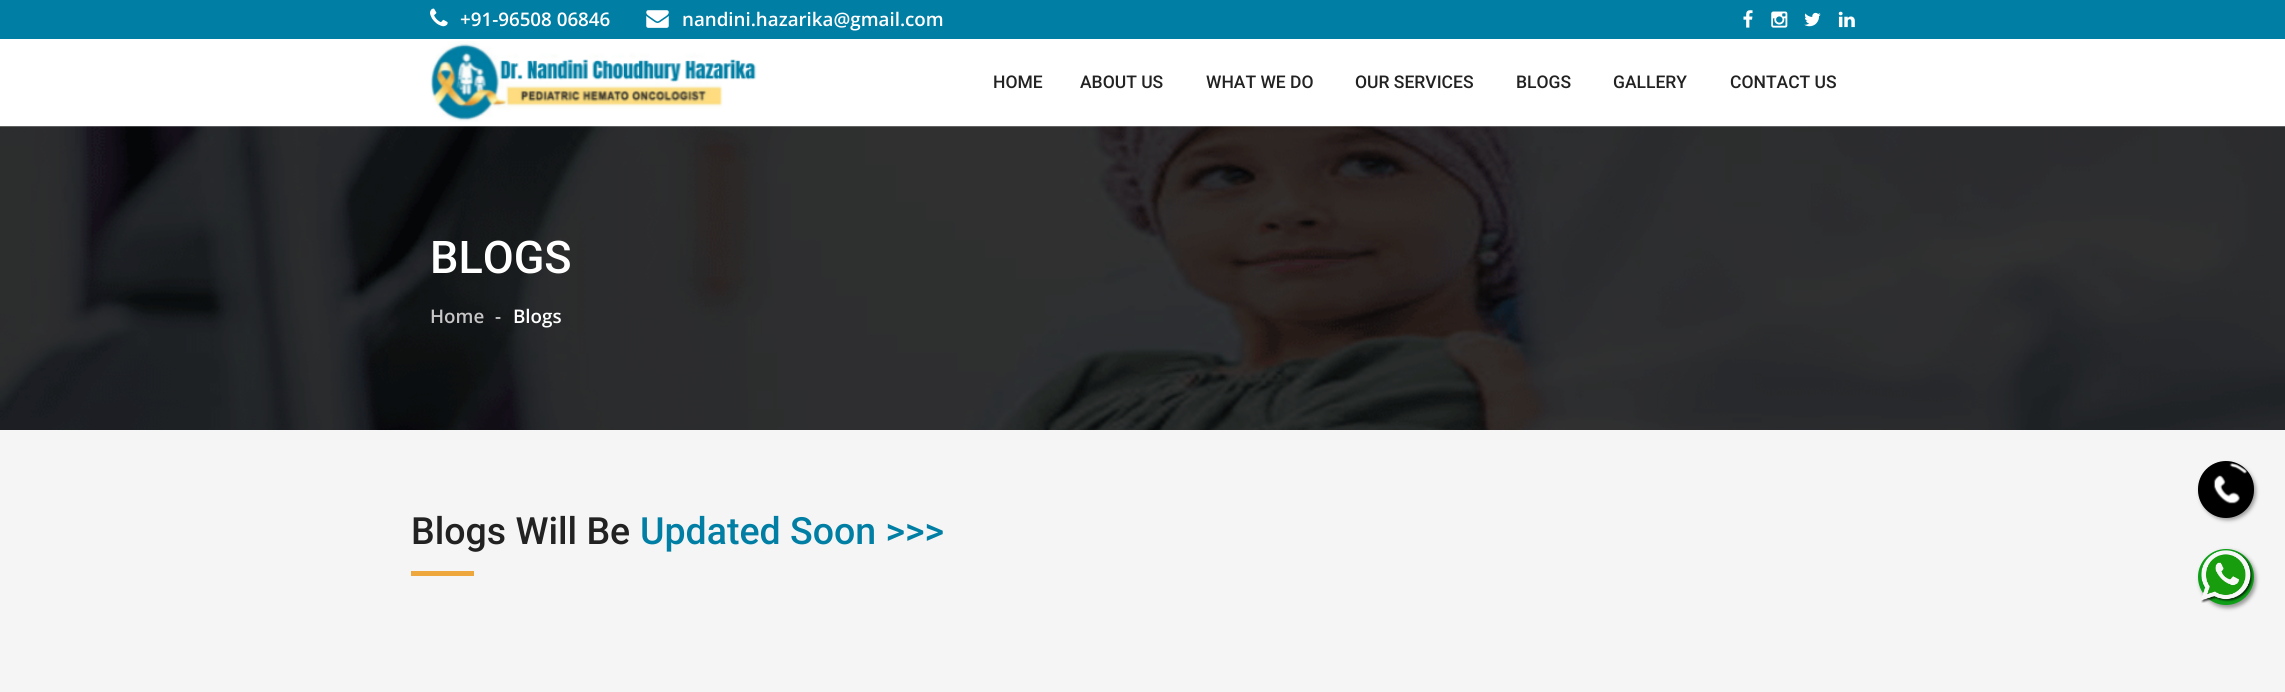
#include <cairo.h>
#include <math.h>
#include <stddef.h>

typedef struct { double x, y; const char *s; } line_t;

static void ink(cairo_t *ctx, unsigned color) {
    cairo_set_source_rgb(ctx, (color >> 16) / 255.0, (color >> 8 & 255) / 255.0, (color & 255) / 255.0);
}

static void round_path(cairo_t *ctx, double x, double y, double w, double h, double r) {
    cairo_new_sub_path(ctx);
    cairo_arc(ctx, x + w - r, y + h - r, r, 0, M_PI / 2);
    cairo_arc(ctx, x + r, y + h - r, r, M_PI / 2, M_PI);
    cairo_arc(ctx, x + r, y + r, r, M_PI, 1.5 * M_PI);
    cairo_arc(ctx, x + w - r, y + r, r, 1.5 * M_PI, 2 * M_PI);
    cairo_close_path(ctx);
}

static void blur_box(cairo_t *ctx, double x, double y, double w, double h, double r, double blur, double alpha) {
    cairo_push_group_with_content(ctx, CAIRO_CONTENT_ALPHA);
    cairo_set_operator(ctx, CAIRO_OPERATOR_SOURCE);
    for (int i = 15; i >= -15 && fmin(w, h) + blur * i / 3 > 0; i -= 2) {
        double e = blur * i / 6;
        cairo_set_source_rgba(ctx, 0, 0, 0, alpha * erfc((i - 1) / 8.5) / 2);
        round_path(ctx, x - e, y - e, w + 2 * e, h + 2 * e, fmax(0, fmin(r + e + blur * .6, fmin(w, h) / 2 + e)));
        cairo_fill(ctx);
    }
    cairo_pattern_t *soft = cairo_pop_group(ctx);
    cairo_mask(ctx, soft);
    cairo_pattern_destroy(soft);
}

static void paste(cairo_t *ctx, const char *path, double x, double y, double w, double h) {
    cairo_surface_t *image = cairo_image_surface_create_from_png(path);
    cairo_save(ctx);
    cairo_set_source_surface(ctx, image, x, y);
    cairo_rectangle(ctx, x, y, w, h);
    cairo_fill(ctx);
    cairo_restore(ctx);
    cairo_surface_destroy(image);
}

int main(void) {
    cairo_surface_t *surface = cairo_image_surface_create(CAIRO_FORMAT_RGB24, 2285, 692);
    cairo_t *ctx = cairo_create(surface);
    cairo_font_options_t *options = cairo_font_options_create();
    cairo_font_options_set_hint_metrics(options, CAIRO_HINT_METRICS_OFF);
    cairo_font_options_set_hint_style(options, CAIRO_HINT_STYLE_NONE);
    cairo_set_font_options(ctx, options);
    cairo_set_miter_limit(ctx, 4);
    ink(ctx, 0xFFFFFF);
    cairo_paint(ctx);
    ink(ctx, 0x007EA4);
    cairo_rectangle(ctx, 0, 0, 2285, 39);
    cairo_fill(ctx);
    paste(ctx, "media/1.png", 430, 8, 18, 19);
    cairo_select_font_face(ctx, "Open Sans SemiBold", CAIRO_FONT_SLANT_NORMAL, CAIRO_FONT_WEIGHT_NORMAL);
    cairo_set_font_size(ctx, 18.75);
    ink(ctx, 0xFFFFFF);
    cairo_move_to(ctx, 460, 26);
    cairo_show_text(ctx, "+91-96508 06846");
    paste(ctx, "media/2.png", 646, 10, 23, 18);
    cairo_move_to(ctx, 682, 26);
    cairo_show_text(ctx, "nandini.hazarika@gmail.com");
    paste(ctx, "media/3.png", 1743, 10, 10, 18);
    paste(ctx, "media/4.png", 1771, 11, 17, 17);
    paste(ctx, "media/5.png", 1804, 12, 17, 15);
    paste(ctx, "media/6.png", 1838, 11, 17, 17);
    paste(ctx, "media/7.png", 430, 41, 327, 81);
    cairo_select_font_face(ctx, "Roboto Medium", CAIRO_FONT_SLANT_NORMAL, CAIRO_FONT_WEIGHT_NORMAL);
    cairo_set_font_size(ctx, 17.5);
    ink(ctx, 0x222222);
    {
        static const line_t items[] = {
            {993, 88, "HOME"},
            {1080, 88, "ABOUT US"},
            {1206, 88, "WHAT WE DO"},
            {1355, 88, "OUR SERVICES"},
            {1516, 88, "BLOGS"},
            {1613, 88, "GALLERY"},
            {1730, 88, "CONTACT US"},
        };
        for (size_t i = 0; i < sizeof items / sizeof *items; i++) {
            cairo_move_to(ctx, items[i].x, items[i].y);
            cairo_show_text(ctx, items[i].s);
        }
    }
    paste(ctx, "media/8.png", 0, 126, 2285, 304);
    cairo_set_font_size(ctx, 45);
    ink(ctx, 0xFFFFFF);
    cairo_move_to(ctx, 430, 273);
    cairo_show_text(ctx, "BLOGS");
    cairo_select_font_face(ctx, "Open Sans SemiBold", CAIRO_FONT_SLANT_NORMAL, CAIRO_FONT_WEIGHT_NORMAL);
    cairo_set_font_size(ctx, 18.75);
    ink(ctx, 0xC6C6C6);
    cairo_move_to(ctx, 430, 323);
    cairo_show_text(ctx, "Home");
    ink(ctx, 0xCCCCCC);
    cairo_move_to(ctx, 495, 323);
    cairo_show_text(ctx, "-");
    ink(ctx, 0xFFFFFF);
    cairo_move_to(ctx, 513, 323);
    cairo_show_text(ctx, "Blogs");
    ink(ctx, 0xF5F5F5);
    cairo_rectangle(ctx, 0, 430, 2285, 262);
    cairo_fill(ctx);
    ink(ctx, 0x999999);
    blur_box(ctx, 2200, 464, 56, 56, 28, 2, 1);
    ink(ctx, 0x000000);
    round_path(ctx, 2198, 461, 56, 57, 28);
    cairo_fill(ctx);
    paste(ctx, "media/9.png", 2213, 463, 35, 41);
    cairo_select_font_face(ctx, "Roboto Medium", CAIRO_FONT_SLANT_NORMAL, CAIRO_FONT_WEIGHT_NORMAL);
    cairo_set_font_size(ctx, 37.5);
    ink(ctx, 0x222222);
    cairo_move_to(ctx, 411, 544);
    cairo_show_text(ctx, "Blogs Will Be");
    ink(ctx, 0x007EA4);
    cairo_move_to(ctx, 640, 544);
    cairo_show_text(ctx, "Updated Soon >>>");
    ink(ctx, 0xEDA73D);
    cairo_rectangle(ctx, 411, 571, 63, 5);
    cairo_fill(ctx);
    ink(ctx, 0x999999);
    blur_box(ctx, 2200, 551, 56, 57, 28, 2, 1);
    ink(ctx, 0x0D9F16);
    cairo_arc(ctx, 2226, 577, 28, 0, 2 * M_PI);
    cairo_fill(ctx);
    paste(ctx, "media/10.png", 2201, 550, 53, 53);
    cairo_surface_write_to_png(surface, "image.png");
    cairo_font_options_destroy(options);
    cairo_destroy(ctx);
    cairo_surface_destroy(surface);
    return 0;
}
